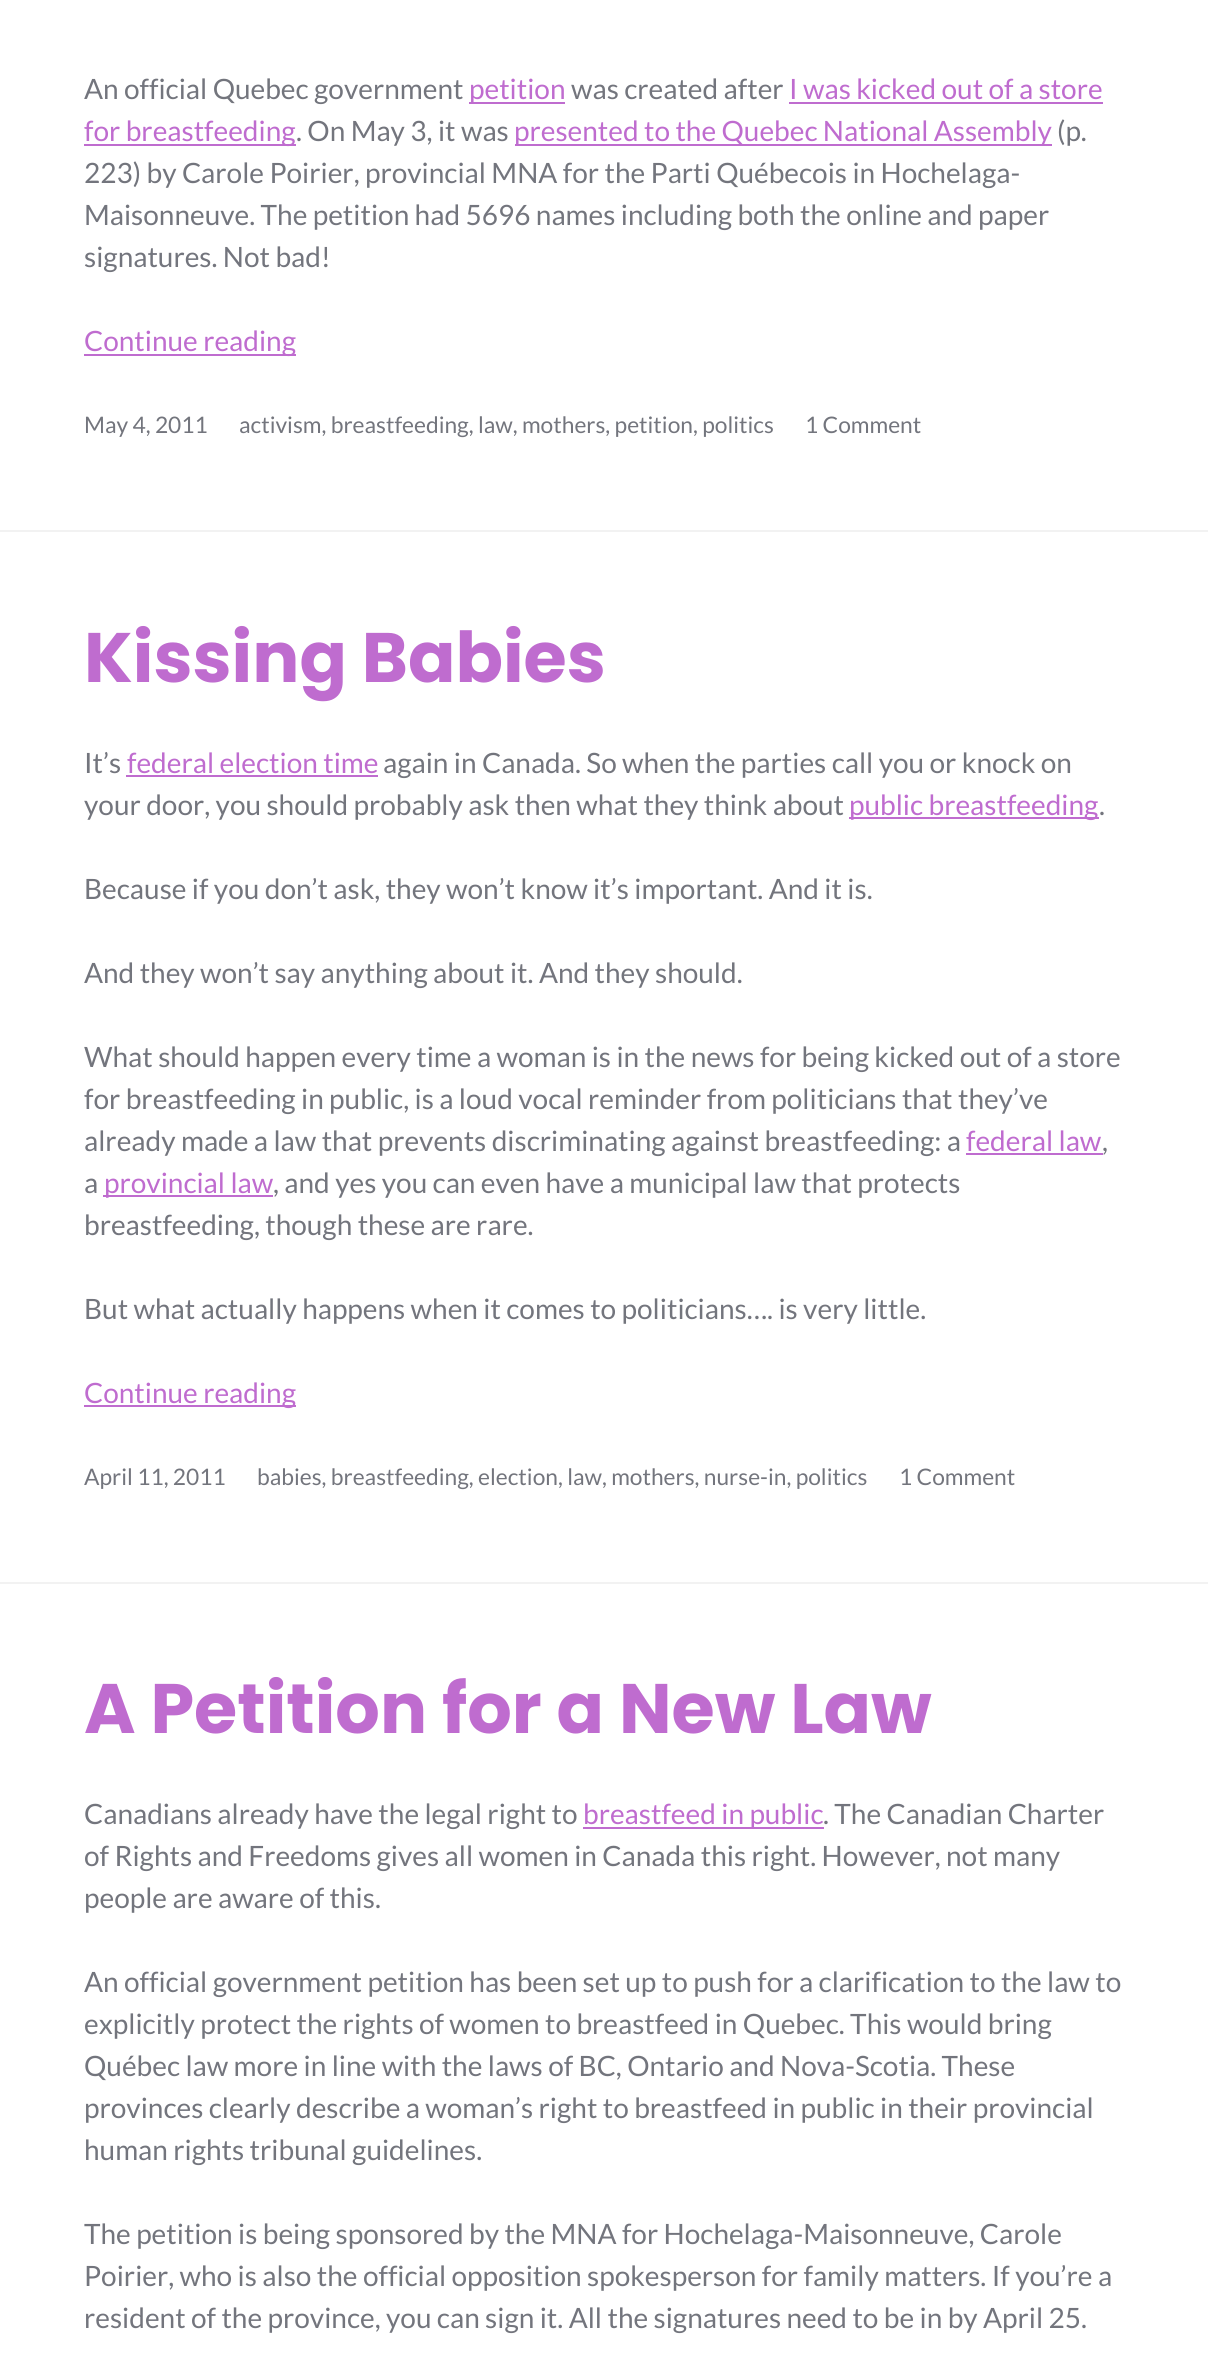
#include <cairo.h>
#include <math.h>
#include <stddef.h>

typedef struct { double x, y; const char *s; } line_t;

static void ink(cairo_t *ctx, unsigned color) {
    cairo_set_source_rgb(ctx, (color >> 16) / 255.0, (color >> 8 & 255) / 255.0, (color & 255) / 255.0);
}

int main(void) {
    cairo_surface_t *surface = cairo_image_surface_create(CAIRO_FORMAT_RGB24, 1208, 2369);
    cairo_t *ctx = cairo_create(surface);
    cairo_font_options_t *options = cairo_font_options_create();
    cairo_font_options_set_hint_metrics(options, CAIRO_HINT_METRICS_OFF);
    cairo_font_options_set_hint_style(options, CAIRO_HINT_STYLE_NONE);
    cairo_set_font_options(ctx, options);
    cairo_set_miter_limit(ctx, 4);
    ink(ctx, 0xFFFFFF);
    cairo_paint(ctx);
    ink(ctx, 0xF2F2F2);
    cairo_rectangle(ctx, 0, 530, 1208, 2);
    cairo_fill(ctx);
    cairo_select_font_face(ctx, "Lato", CAIRO_FONT_SLANT_NORMAL, CAIRO_FONT_WEIGHT_NORMAL);
    cairo_set_font_size(ctx, 28);
    ink(ctx, 0x73757D);
    cairo_move_to(ctx, 84, 99);
    cairo_show_text(ctx, "An official Quebec government");
    ink(ctx, 0xBF6CCF);
    cairo_rectangle(ctx, 469, 102, 96, 2);
    cairo_fill(ctx);
    cairo_move_to(ctx, 469, 99);
    cairo_show_text(ctx, "petition");
    ink(ctx, 0x73757D);
    cairo_move_to(ctx, 571, 99);
    cairo_show_text(ctx, "was created after");
    ink(ctx, 0xBF6CCF);
    cairo_move_to(ctx, 789, 99);
    cairo_show_text(ctx, "I was kicked out of a store");
    cairo_rectangle(ctx, 789, 102, 314, 2);
    cairo_fill(ctx);
    cairo_rectangle(ctx, 84, 144, 212, 2);
    cairo_fill(ctx);
    cairo_move_to(ctx, 84, 141);
    cairo_show_text(ctx, "for breastfeeding");
    ink(ctx, 0x73757D);
    cairo_move_to(ctx, 296, 141);
    cairo_show_text(ctx, ". On May 3, it was");
    ink(ctx, 0xBF6CCF);
    cairo_rectangle(ctx, 515, 144, 537, 2);
    cairo_fill(ctx);
    cairo_move_to(ctx, 514, 141);
    cairo_show_text(ctx, "presented to the Quebec National Assembly");
    ink(ctx, 0x73757D);
    {
        static const line_t items[] = {
            {1057, 141, "(p."},
            {84, 183, "223) by Carole Poirier, provincial MNA for the Parti Québecois in Hochelaga-"},
            {84, 225, "Maisonneuve. The petition had 5696 names including both the online and paper"},
            {84, 267, "signatures. Not bad!"},
        };
        for (size_t i = 0; i < sizeof items / sizeof *items; i++) {
            cairo_move_to(ctx, items[i].x, items[i].y);
            cairo_show_text(ctx, items[i].s);
        }
    }
    ink(ctx, 0xBF6CCF);
    cairo_rectangle(ctx, 84, 354, 212, 2);
    cairo_fill(ctx);
    cairo_move_to(ctx, 84, 351);
    cairo_show_text(ctx, "Continue reading");
    cairo_set_font_size(ctx, 22.75);
    ink(ctx, 0x73757D);
    {
        static const line_t items[] = {
            {84, 433, "May 4, 2011"},
            {239, 433, "activism, breastfeeding, law, mothers, petition, politics"},
            {805, 433, "1 Comment"},
        };
        for (size_t i = 0; i < sizeof items / sizeof *items; i++) {
            cairo_move_to(ctx, items[i].x, items[i].y);
            cairo_show_text(ctx, items[i].s);
        }
    }
    ink(ctx, 0xF2F2F2);
    cairo_rectangle(ctx, 0, 1582, 1208, 2);
    cairo_fill(ctx);
    cairo_select_font_face(ctx, "Poppins", CAIRO_FONT_SLANT_NORMAL, CAIRO_FONT_WEIGHT_BOLD);
    cairo_set_font_size(ctx, 70);
    ink(ctx, 0xBF6CCF);
    cairo_move_to(ctx, 84, 682);
    cairo_show_text(ctx, "Kissing Babies");
    cairo_select_font_face(ctx, "Lato", CAIRO_FONT_SLANT_NORMAL, CAIRO_FONT_WEIGHT_NORMAL);
    cairo_set_font_size(ctx, 28);
    ink(ctx, 0x73757D);
    cairo_move_to(ctx, 84, 773);
    cairo_show_text(ctx, "It’s");
    ink(ctx, 0xBF6CCF);
    cairo_move_to(ctx, 127, 773);
    cairo_show_text(ctx, "federal election time");
    cairo_rectangle(ctx, 126, 775, 252, 2);
    cairo_fill(ctx);
    ink(ctx, 0x73757D);
    cairo_move_to(ctx, 383, 773);
    cairo_show_text(ctx, "again in Canada. So when the parties call you or knock on");
    cairo_move_to(ctx, 84, 815);
    cairo_show_text(ctx, "your door, you should probably ask then what they think about");
    ink(ctx, 0xBF6CCF);
    cairo_rectangle(ctx, 849, 817, 250, 2);
    cairo_fill(ctx);
    cairo_move_to(ctx, 849, 815);
    cairo_show_text(ctx, "public breastfeeding");
    ink(ctx, 0x73757D);
    {
        static const line_t items[] = {
            {1099, 815, "."},
            {84, 899, "Because if you don’t ask, they won’t know it’s important. And it is."},
            {84, 983, "And they won’t say anything about it. And they should."},
            {84, 1067, "What should happen every time a woman is in the news for being kicked out of a store"},
            {84, 1109, "for breastfeeding in public, is a loud vocal reminder from politicians that they’ve"},
            {84, 1151, "already made a law that prevents discriminating against breastfeeding: a"},
        };
        for (size_t i = 0; i < sizeof items / sizeof *items; i++) {
            cairo_move_to(ctx, items[i].x, items[i].y);
            cairo_show_text(ctx, items[i].s);
        }
    }
    ink(ctx, 0xBF6CCF);
    cairo_move_to(ctx, 966, 1151);
    cairo_show_text(ctx, "federal law");
    cairo_rectangle(ctx, 966, 1153, 137, 2);
    cairo_fill(ctx);
    ink(ctx, 0x73757D);
    cairo_move_to(ctx, 1102, 1151);
    cairo_show_text(ctx, ",");
    cairo_move_to(ctx, 84, 1193);
    cairo_show_text(ctx, "a");
    ink(ctx, 0xBF6CCF);
    cairo_rectangle(ctx, 103, 1195, 170, 2);
    cairo_fill(ctx);
    cairo_move_to(ctx, 104, 1193);
    cairo_show_text(ctx, "provincial law");
    ink(ctx, 0x73757D);
    {
        static const line_t items[] = {
            {273, 1193, ", and yes you can even have a municipal law that protects"},
            {84, 1235, "breastfeeding, though these are rare."},
            {84, 1319, "But what actually happens when it comes to politicians…. is very little."},
        };
        for (size_t i = 0; i < sizeof items / sizeof *items; i++) {
            cairo_move_to(ctx, items[i].x, items[i].y);
            cairo_show_text(ctx, items[i].s);
        }
    }
    ink(ctx, 0xBF6CCF);
    cairo_rectangle(ctx, 84, 1405, 212, 2);
    cairo_fill(ctx);
    cairo_move_to(ctx, 84, 1403);
    cairo_show_text(ctx, "Continue reading");
    cairo_set_font_size(ctx, 22.75);
    ink(ctx, 0x73757D);
    {
        static const line_t items[] = {
            {84, 1485, "April 11, 2011"},
            {257, 1485, "babies, breastfeeding, election, law, mothers, nurse-in, politics"},
            {899, 1485, "1 Comment"},
        };
        for (size_t i = 0; i < sizeof items / sizeof *items; i++) {
            cairo_move_to(ctx, items[i].x, items[i].y);
            cairo_show_text(ctx, items[i].s);
        }
    }
    cairo_select_font_face(ctx, "Poppins", CAIRO_FONT_SLANT_NORMAL, CAIRO_FONT_WEIGHT_BOLD);
    cairo_set_font_size(ctx, 70);
    ink(ctx, 0xBF6CCF);
    cairo_move_to(ctx, 84, 1733);
    cairo_show_text(ctx, "A Petition for a New Law");
    cairo_select_font_face(ctx, "Lato", CAIRO_FONT_SLANT_NORMAL, CAIRO_FONT_WEIGHT_NORMAL);
    cairo_set_font_size(ctx, 28);
    ink(ctx, 0x73757D);
    cairo_move_to(ctx, 84, 1824);
    cairo_show_text(ctx, "Canadians already have the legal right to");
    ink(ctx, 0xBF6CCF);
    cairo_rectangle(ctx, 583, 1827, 241, 2);
    cairo_fill(ctx);
    cairo_move_to(ctx, 583, 1824);
    cairo_show_text(ctx, "breastfeed in public");
    ink(ctx, 0x73757D);
    {
        static const line_t items[] = {
            {823, 1824, ". The Canadian Charter"},
            {84, 1866, "of Rights and Freedoms gives all women in Canada this right. However, not many"},
            {84, 1908, "people are aware of this."},
            {84, 1992, "An official government petition has been set up to push for a clarification to the law to"},
            {84, 2034, "explicitly protect the rights of women to breastfeed in Quebec. This would bring"},
            {84, 2076, "Québec law more in line with the laws of BC, Ontario and Nova-Scotia. These"},
            {84, 2118, "provinces clearly describe a woman’s right to breastfeed in public in their provincial"},
            {84, 2160, "human rights tribunal guidelines."},
            {84, 2244, "The petition is being sponsored by the MNA for Hochelaga-Maisonneuve, Carole"},
            {84, 2286, "Poirier, who is also the official opposition spokesperson for family matters. If you’re a"},
            {84, 2328, "resident of the province, you can sign it. All the signatures need to be in by April 25."},
        };
        for (size_t i = 0; i < sizeof items / sizeof *items; i++) {
            cairo_move_to(ctx, items[i].x, items[i].y);
            cairo_show_text(ctx, items[i].s);
        }
    }
    cairo_surface_write_to_png(surface, "image.png");
    cairo_font_options_destroy(options);
    cairo_destroy(ctx);
    cairo_surface_destroy(surface);
    return 0;
}
